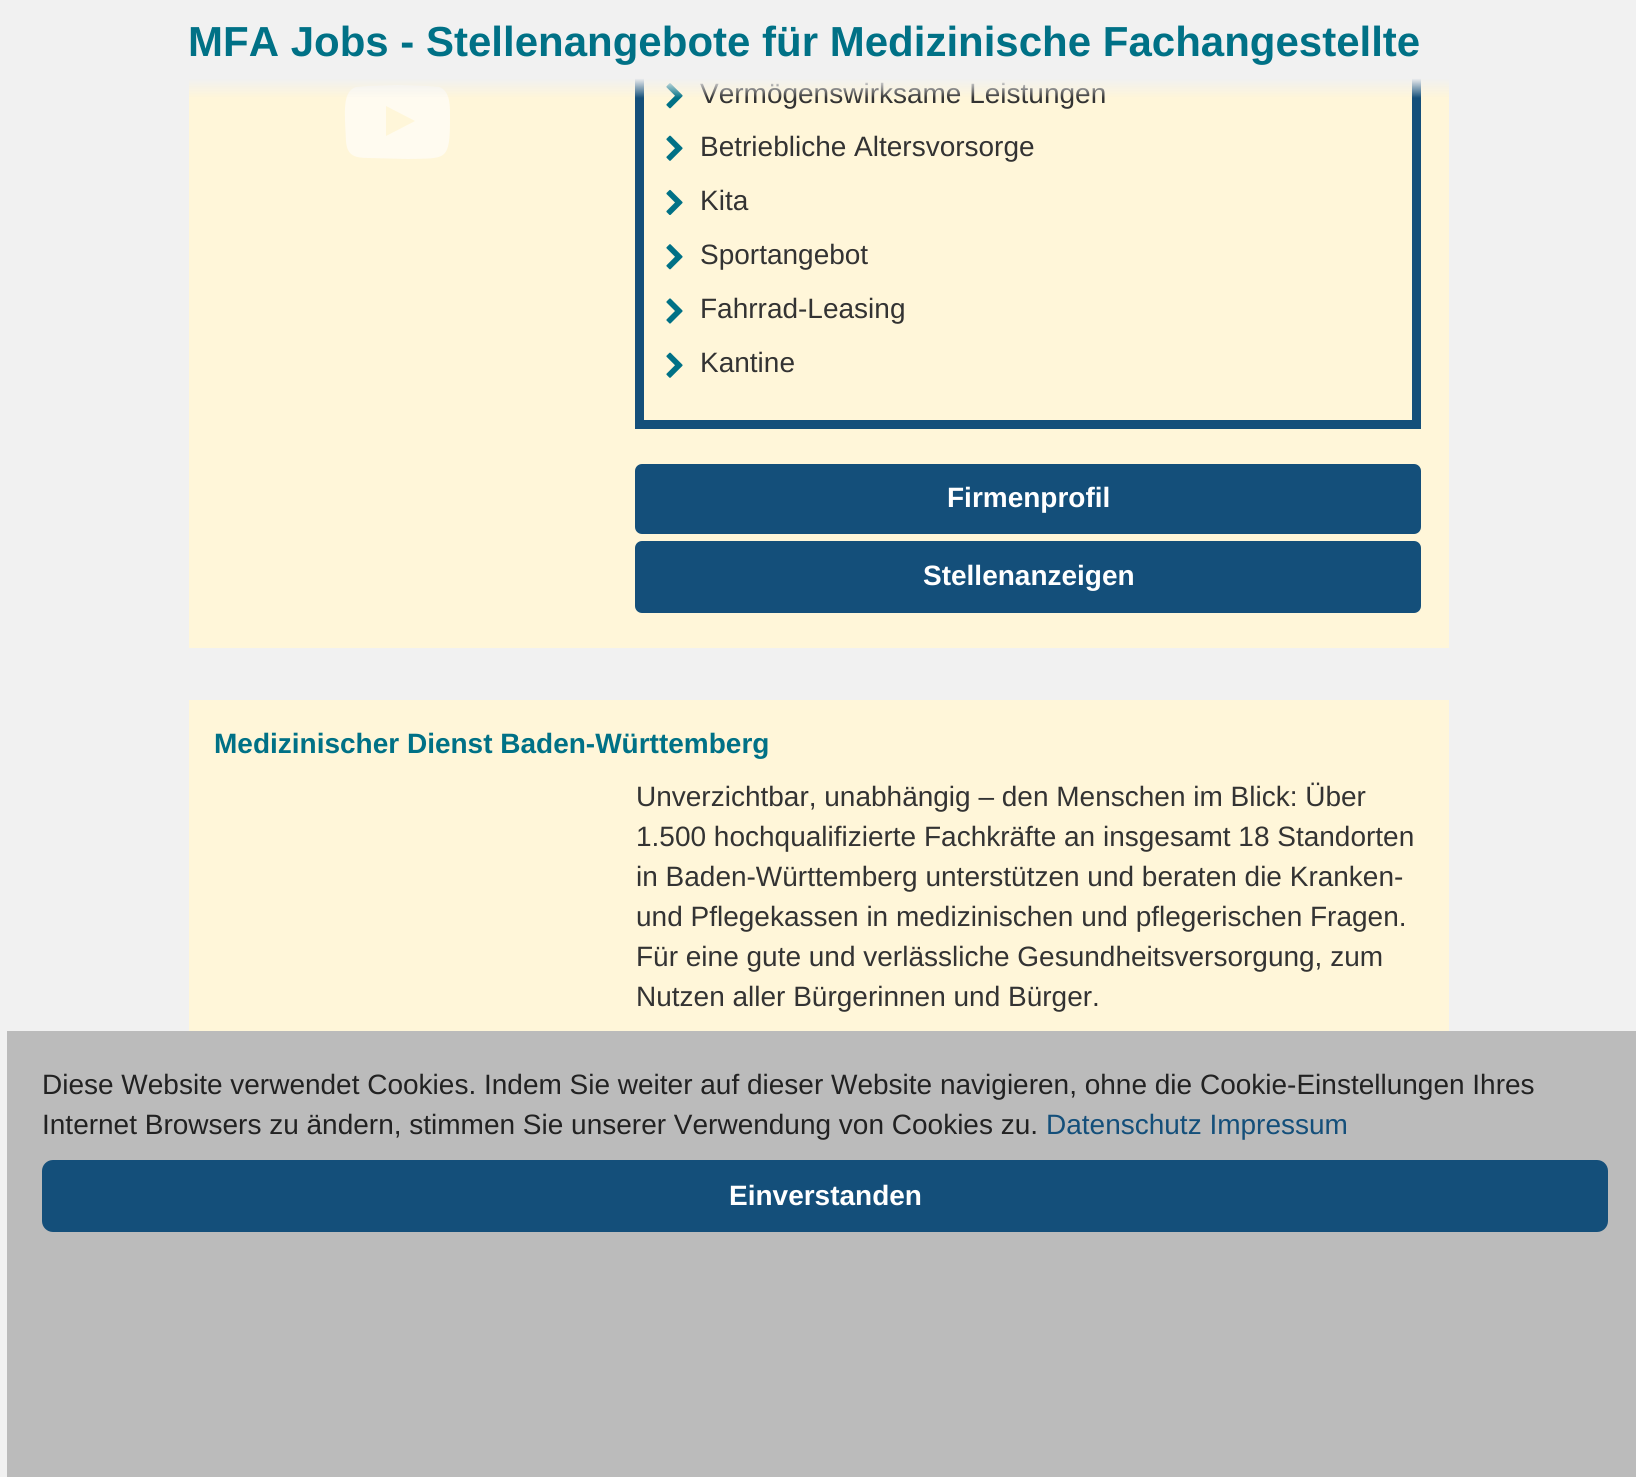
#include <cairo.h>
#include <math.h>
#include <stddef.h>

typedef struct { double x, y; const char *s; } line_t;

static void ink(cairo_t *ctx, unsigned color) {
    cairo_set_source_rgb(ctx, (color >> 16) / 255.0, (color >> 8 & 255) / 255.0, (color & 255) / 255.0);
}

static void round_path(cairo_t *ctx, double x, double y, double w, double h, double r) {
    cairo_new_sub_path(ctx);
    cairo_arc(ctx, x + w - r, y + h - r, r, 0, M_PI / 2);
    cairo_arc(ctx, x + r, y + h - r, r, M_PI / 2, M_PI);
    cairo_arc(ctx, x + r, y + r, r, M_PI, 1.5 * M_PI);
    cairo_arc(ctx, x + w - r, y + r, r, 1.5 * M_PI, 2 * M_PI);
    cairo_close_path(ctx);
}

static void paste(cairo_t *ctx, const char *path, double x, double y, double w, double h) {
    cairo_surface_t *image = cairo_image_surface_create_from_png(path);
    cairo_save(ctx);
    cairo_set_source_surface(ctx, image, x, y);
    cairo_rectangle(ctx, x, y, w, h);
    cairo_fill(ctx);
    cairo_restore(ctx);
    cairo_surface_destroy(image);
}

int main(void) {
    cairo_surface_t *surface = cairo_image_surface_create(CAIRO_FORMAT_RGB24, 1636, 1477);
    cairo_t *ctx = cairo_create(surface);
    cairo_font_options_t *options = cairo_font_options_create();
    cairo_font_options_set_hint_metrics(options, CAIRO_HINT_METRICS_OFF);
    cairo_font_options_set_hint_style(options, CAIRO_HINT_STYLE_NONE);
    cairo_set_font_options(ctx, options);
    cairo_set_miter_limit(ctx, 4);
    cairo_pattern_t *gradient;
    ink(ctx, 0xF1F1F1);
    cairo_paint(ctx);
    ink(ctx, 0xFFF6D9);
    cairo_rectangle(ctx, 189, 79, 1260, 569);
    cairo_fill(ctx);
    ink(ctx, 0xFFFBF0);
    cairo_new_path(ctx);
    cairo_move_to(ctx, 386, 136);
    cairo_line_to(ctx, 415, 121);
    cairo_line_to(ctx, 386, 106);
    cairo_close_path(ctx);
    cairo_move_to(ctx, 397, 85);
    cairo_line_to(ctx, 427, 86);
    cairo_line_to(ctx, 439, 87);
    cairo_curve_to(ctx, 451, 91, 450, 108, 450, 118);
    cairo_curve_to(ctx, 450, 162, 446, 158, 408, 159);
    cairo_line_to(ctx, 369, 158);
    cairo_curve_to(ctx, 355, 158, 347, 156, 346, 141);
    cairo_line_to(ctx, 345, 121);
    cairo_curve_to(ctx, 345, 111, 343, 91, 356, 87);
    cairo_line_to(ctx, 368, 86);
    cairo_close_path(ctx);
    cairo_fill(ctx);
    cairo_rectangle(ctx, 639.5, -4.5, 777, 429);
    ink(ctx, 0x144F7A);
    cairo_set_line_width(ctx, 9);
    cairo_stroke(ctx);
    paste(ctx, "media/1.png", 666, 83, 17, 26);
    cairo_select_font_face(ctx, "Liberation Sans", CAIRO_FONT_SLANT_NORMAL, CAIRO_FONT_WEIGHT_NORMAL);
    cairo_set_font_size(ctx, 28);
    ink(ctx, 0x333333);
    cairo_move_to(ctx, 700, 103);
    cairo_show_text(ctx, "Vermögenswirksame Leistungen");
    gradient = cairo_pattern_create_linear(819, 98, 819, 0);
    cairo_pattern_add_color_stop_rgba(gradient, 0, 0.945, 0.945, 0.945, 0);
    cairo_pattern_add_color_stop_rgba(gradient, 0.2, 0.945, 0.945, 0.945, 1);
    cairo_set_source(ctx, gradient);
    cairo_pattern_destroy(gradient);
    cairo_rectangle(ctx, 189, 0, 1260, 98);
    cairo_fill(ctx);
    cairo_select_font_face(ctx, "Liberation Sans", CAIRO_FONT_SLANT_NORMAL, CAIRO_FONT_WEIGHT_BOLD);
    cairo_set_font_size(ctx, 42);
    ink(ctx, 0x007186);
    cairo_move_to(ctx, 188, 56);
    cairo_show_text(ctx, "MFA Jobs - Stellenangebote für Medizinische Fachangestellte");
    paste(ctx, "media/2.png", 666, 135, 17, 26);
    cairo_select_font_face(ctx, "Liberation Sans", CAIRO_FONT_SLANT_NORMAL, CAIRO_FONT_WEIGHT_NORMAL);
    cairo_set_font_size(ctx, 28);
    ink(ctx, 0x333333);
    cairo_move_to(ctx, 700, 156);
    cairo_show_text(ctx, "Betriebliche Altersvorsorge");
    paste(ctx, "media/3.png", 666, 189, 17, 26);
    cairo_move_to(ctx, 700, 210);
    cairo_show_text(ctx, "Kita");
    paste(ctx, "media/1.png", 666, 244, 17, 26);
    cairo_move_to(ctx, 700, 264);
    cairo_show_text(ctx, "Sportangebot");
    paste(ctx, "media/4.png", 666, 298, 17, 26);
    cairo_move_to(ctx, 700, 318);
    cairo_show_text(ctx, "Fahrrad-Leasing");
    paste(ctx, "media/2.png", 666, 352, 17, 26);
    cairo_move_to(ctx, 700, 372);
    cairo_show_text(ctx, "Kantine");
    ink(ctx, 0x144F7A);
    round_path(ctx, 635, 464, 786, 70, 7);
    cairo_fill(ctx);
    cairo_select_font_face(ctx, "Liberation Sans", CAIRO_FONT_SLANT_NORMAL, CAIRO_FONT_WEIGHT_BOLD);
    ink(ctx, 0xFFFFFF);
    cairo_move_to(ctx, 947, 507);
    cairo_show_text(ctx, "Firmenprofil");
    ink(ctx, 0x144F7A);
    round_path(ctx, 635, 541, 786, 72, 7);
    cairo_fill(ctx);
    ink(ctx, 0xFFFFFF);
    cairo_move_to(ctx, 923, 585);
    cairo_show_text(ctx, "Stellenanzeigen");
    ink(ctx, 0xFFF6D9);
    cairo_rectangle(ctx, 189, 700, 1260, 331);
    cairo_fill(ctx);
    ink(ctx, 0x007186);
    cairo_move_to(ctx, 214, 753);
    cairo_show_text(ctx, "Medizinischer Dienst Baden-Württemberg");
    cairo_select_font_face(ctx, "Liberation Sans", CAIRO_FONT_SLANT_NORMAL, CAIRO_FONT_WEIGHT_NORMAL);
    ink(ctx, 0x333333);
    {
        static const line_t items[] = {
            {636, 806, "Unverzichtbar, unabhängig – den Menschen im Blick: Über"},
            {636, 846, "1.500 hochqualifizierte Fachkräfte an insgesamt 18 Standorten"},
            {636, 886, "in Baden-Württemberg unterstützen und beraten die Kranken-"},
            {636, 926, "und Pflegekassen in medizinischen und pflegerischen Fragen."},
            {636, 966, "Für eine gute und verlässliche Gesundheitsversorgung, zum"},
            {636, 1006, "Nutzen aller Bürgerinnen und Bürger."},
        };
        for (size_t i = 0; i < sizeof items / sizeof *items; i++) {
            cairo_move_to(ctx, items[i].x, items[i].y);
            cairo_show_text(ctx, items[i].s);
        }
    }
    ink(ctx, 0xBBBBBB);
    cairo_rectangle(ctx, 7, 1031, 1629, 446);
    cairo_fill(ctx);
    ink(ctx, 0x222222);
    cairo_move_to(ctx, 42, 1094);
    cairo_show_text(ctx, "Diese Website verwendet Cookies. Indem Sie weiter auf dieser Website navigieren, ohne die Cookie-Einstellungen Ihres");
    cairo_move_to(ctx, 42, 1134);
    cairo_show_text(ctx, "Internet Browsers zu ändern, stimmen Sie unserer Verwendung von Cookies zu.");
    ink(ctx, 0x144F7A);
    cairo_move_to(ctx, 1046, 1134);
    cairo_show_text(ctx, "Datenschutz Impressum");
    round_path(ctx, 42, 1160, 1566, 72, 11);
    cairo_fill(ctx);
    cairo_select_font_face(ctx, "Liberation Sans", CAIRO_FONT_SLANT_NORMAL, CAIRO_FONT_WEIGHT_BOLD);
    ink(ctx, 0xFFFFFF);
    cairo_move_to(ctx, 729, 1205);
    cairo_show_text(ctx, "Einverstanden");
    cairo_surface_write_to_png(surface, "image.png");
    cairo_font_options_destroy(options);
    cairo_destroy(ctx);
    cairo_surface_destroy(surface);
    return 0;
}
